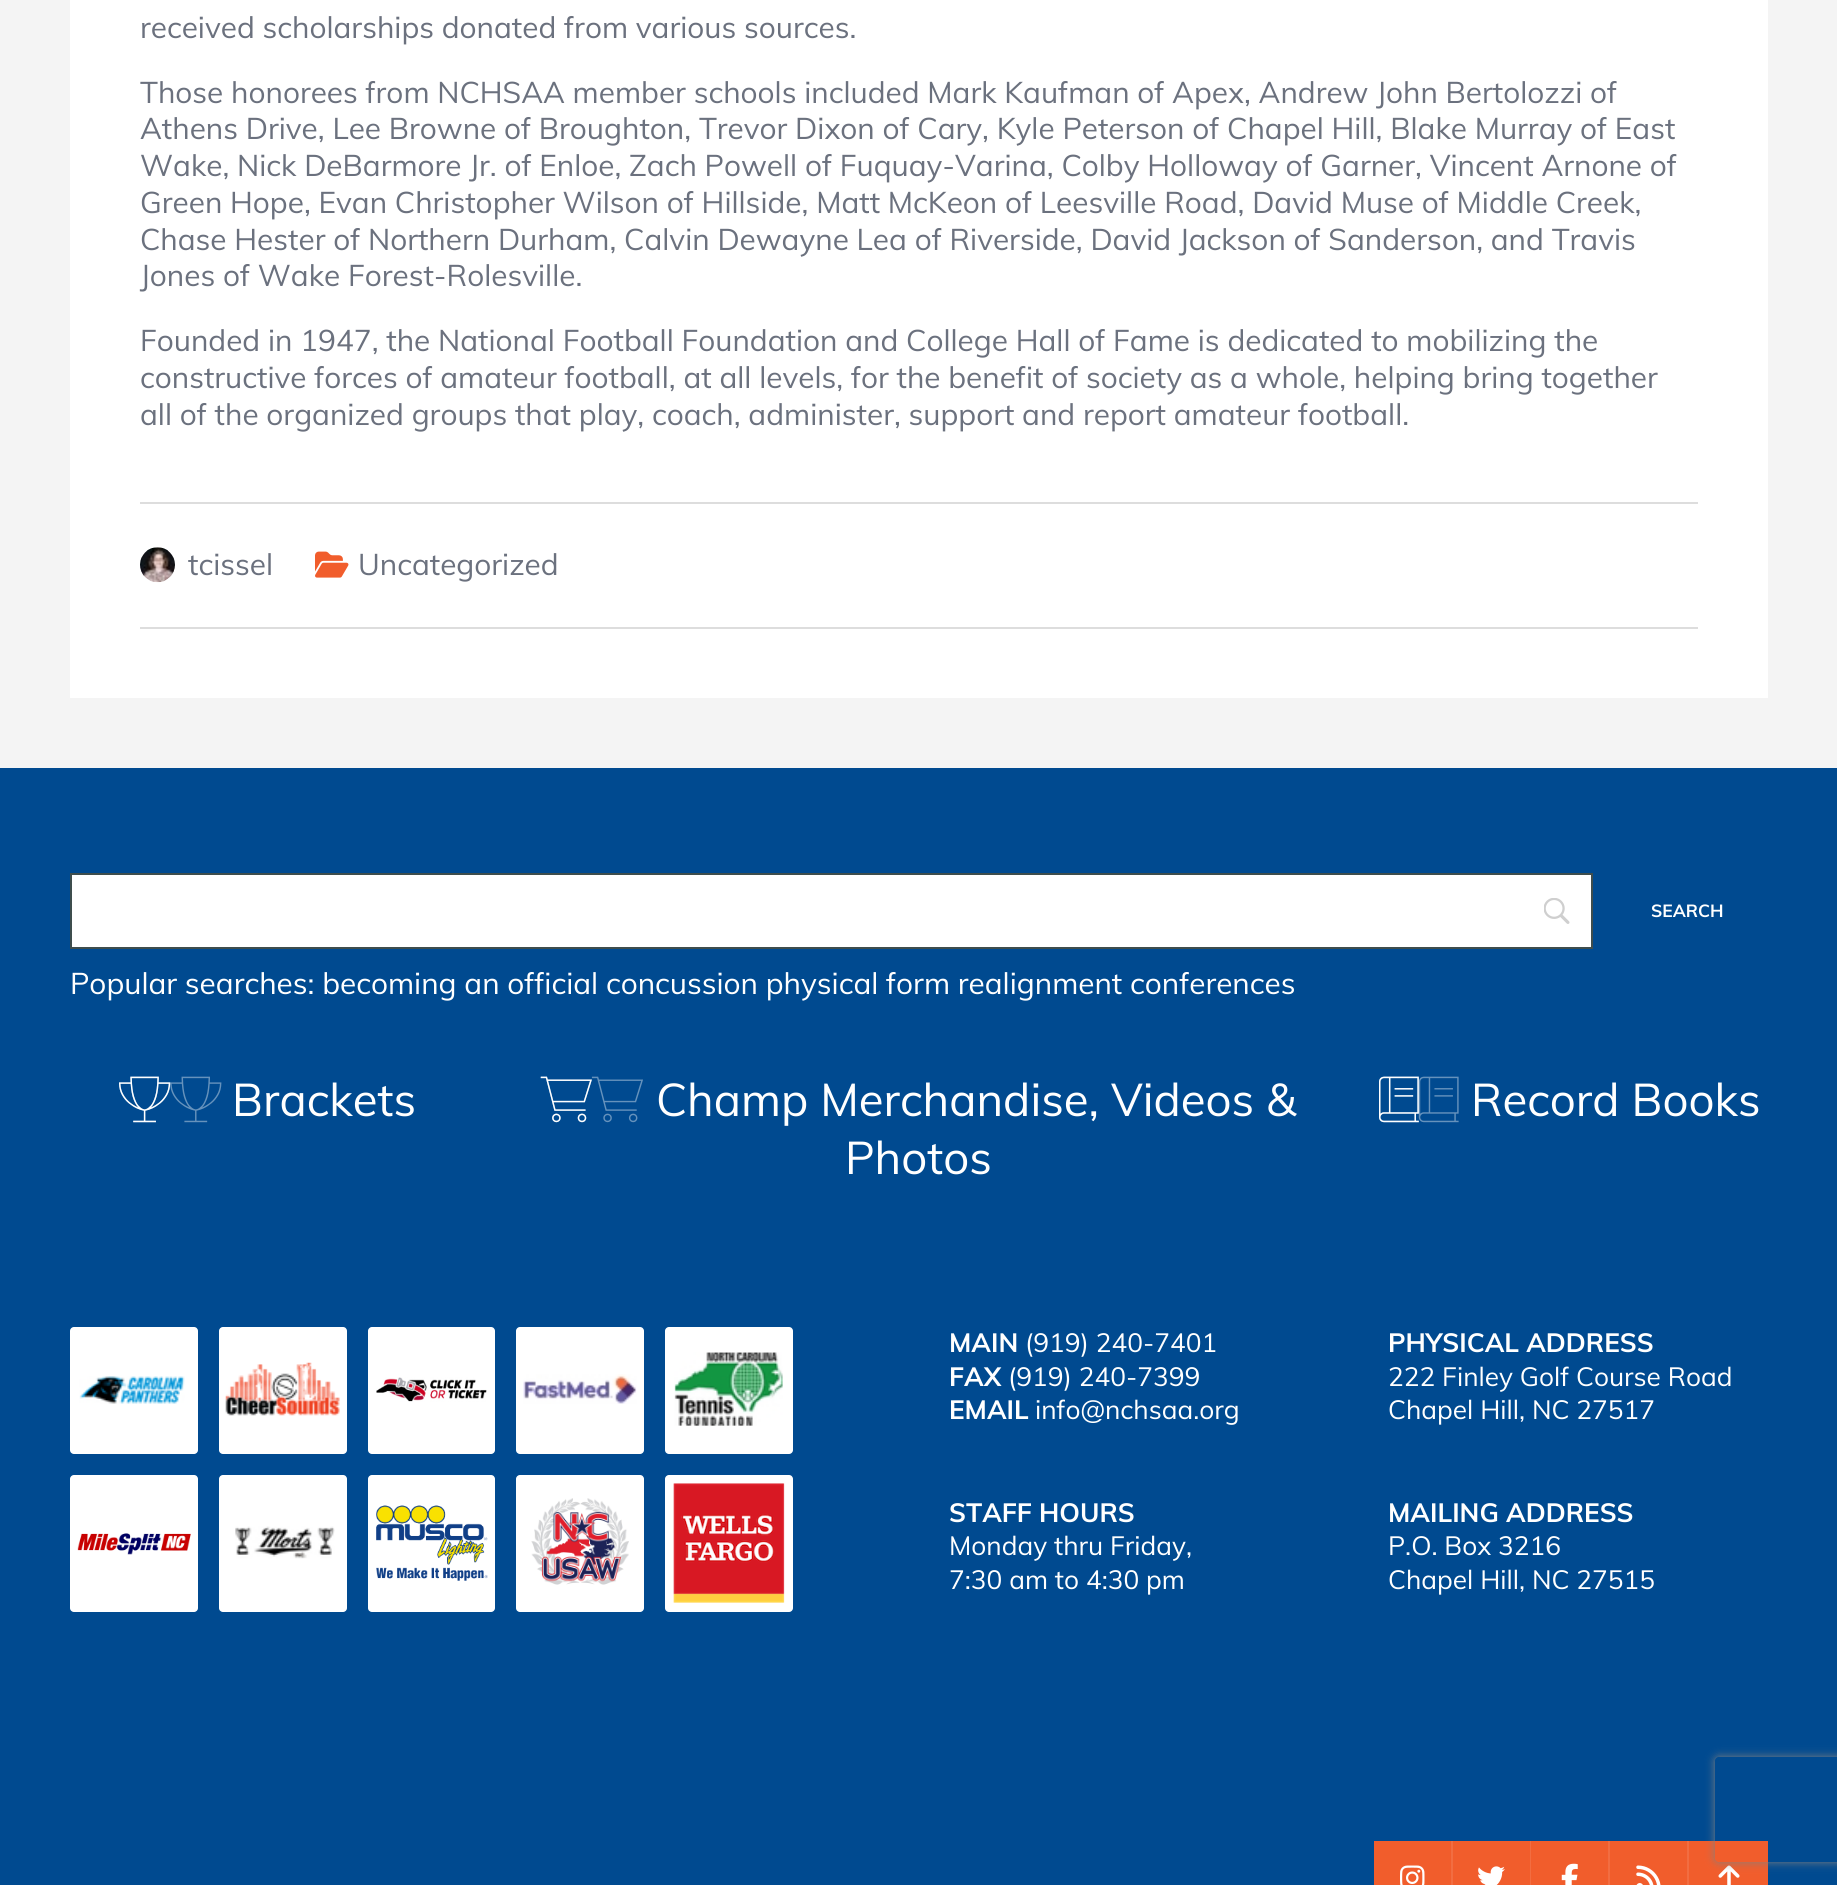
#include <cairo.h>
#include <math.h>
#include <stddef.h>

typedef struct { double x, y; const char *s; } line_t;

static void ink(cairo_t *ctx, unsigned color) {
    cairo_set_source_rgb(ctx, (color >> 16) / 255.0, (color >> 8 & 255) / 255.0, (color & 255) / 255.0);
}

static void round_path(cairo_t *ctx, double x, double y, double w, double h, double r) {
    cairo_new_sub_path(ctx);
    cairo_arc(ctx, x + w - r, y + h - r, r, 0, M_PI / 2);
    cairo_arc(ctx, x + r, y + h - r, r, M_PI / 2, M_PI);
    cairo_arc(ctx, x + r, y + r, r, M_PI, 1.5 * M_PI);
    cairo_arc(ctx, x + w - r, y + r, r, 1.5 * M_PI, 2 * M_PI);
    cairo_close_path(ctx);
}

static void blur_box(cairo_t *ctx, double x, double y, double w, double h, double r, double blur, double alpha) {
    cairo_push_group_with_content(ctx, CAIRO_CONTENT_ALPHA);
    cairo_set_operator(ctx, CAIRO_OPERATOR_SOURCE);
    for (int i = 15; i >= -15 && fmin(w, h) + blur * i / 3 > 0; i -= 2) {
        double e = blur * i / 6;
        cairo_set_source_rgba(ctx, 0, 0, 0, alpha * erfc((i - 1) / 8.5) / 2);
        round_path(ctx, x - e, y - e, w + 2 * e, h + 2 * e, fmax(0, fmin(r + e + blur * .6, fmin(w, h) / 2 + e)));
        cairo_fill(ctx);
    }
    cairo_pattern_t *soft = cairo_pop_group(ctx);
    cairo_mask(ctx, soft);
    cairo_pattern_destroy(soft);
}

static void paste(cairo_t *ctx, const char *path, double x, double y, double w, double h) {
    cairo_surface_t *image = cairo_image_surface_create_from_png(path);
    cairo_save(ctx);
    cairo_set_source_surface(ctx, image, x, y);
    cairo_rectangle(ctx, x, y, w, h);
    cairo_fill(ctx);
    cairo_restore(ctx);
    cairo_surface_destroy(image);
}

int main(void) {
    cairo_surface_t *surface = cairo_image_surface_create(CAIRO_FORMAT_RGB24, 1837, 1885);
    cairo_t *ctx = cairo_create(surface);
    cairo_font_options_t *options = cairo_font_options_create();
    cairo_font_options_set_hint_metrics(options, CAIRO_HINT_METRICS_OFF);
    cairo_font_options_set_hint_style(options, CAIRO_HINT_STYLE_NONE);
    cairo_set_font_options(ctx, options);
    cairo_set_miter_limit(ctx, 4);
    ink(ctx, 0xF4F4F4);
    cairo_paint(ctx);
    ink(ctx, 0xFFFFFF);
    cairo_rectangle(ctx, 70, 0, 1698, 698);
    cairo_fill(ctx);
    cairo_select_font_face(ctx, "Muli", CAIRO_FONT_SLANT_NORMAL, CAIRO_FONT_WEIGHT_NORMAL);
    cairo_set_font_size(ctx, 29.75);
    ink(ctx, 0x6B717E);
    {
        static const line_t items[] = {
            {140, 38, "received scholarships donated from various sources."},
            {140, 103, "Those honorees from NCHSAA member schools included Mark Kaufman of Apex, Andrew John Bertolozzi of"},
            {140, 139, "Athens Drive, Lee Browne of Broughton, Trevor Dixon of Cary, Kyle Peterson of Chapel Hill, Blake Murray of East"},
            {140, 176, "Wake, Nick DeBarmore Jr. of Enloe, Zach Powell of Fuquay-Varina, Colby Holloway of Garner, Vincent Arnone of"},
            {140, 213, "Green Hope, Evan Christopher Wilson of Hillside, Matt McKeon of Leesville Road, David Muse of Middle Creek,"},
            {140, 250, "Chase Hester of Northern Durham, Calvin Dewayne Lea of Riverside, David Jackson of Sanderson, and Travis"},
            {140, 286, "Jones of Wake Forest-Rolesville."},
            {140, 351, "Founded in 1947, the National Football Foundation and College Hall of Fame is dedicated to mobilizing the"},
            {140, 388, "constructive forces of amateur football, at all levels, for the benefit of society as a whole, helping bring together"},
            {140, 425, "all of the organized groups that play, coach, administer, support and report amateur football."},
        };
        for (size_t i = 0; i < sizeof items / sizeof *items; i++) {
            cairo_move_to(ctx, items[i].x, items[i].y);
            cairo_show_text(ctx, items[i].s);
        }
    }
    ink(ctx, 0xDDDDDD);
    cairo_rectangle(ctx, 140, 502, 1558, 2);
    cairo_fill(ctx);
    cairo_rectangle(ctx, 140, 627, 1558, 2);
    cairo_fill(ctx);
    paste(ctx, "media/1.png", 140, 547, 35, 36);
    ink(ctx, 0x6B717E);
    cairo_move_to(ctx, 188, 575);
    cairo_show_text(ctx, "tcissel");
    paste(ctx, "media/2.png", 315, 551, 34, 27);
    cairo_move_to(ctx, 358, 575);
    cairo_show_text(ctx, "Uncategorized");
    ink(ctx, 0x004A90);
    cairo_rectangle(ctx, 0, 768, 1837, 1117);
    cairo_fill(ctx);
    ink(ctx, 0xFFFFFF);
    cairo_rectangle(ctx, 72, 875, 1519, 72);
    cairo_fill(ctx);
    paste(ctx, "media/3.png", 1544, 898, 26, 26);
    cairo_rectangle(ctx, 71, 874, 1521, 74);
    ink(ctx, 0x3E4D4D);
    cairo_stroke(ctx);
    cairo_select_font_face(ctx, "Muli", CAIRO_FONT_SLANT_NORMAL, CAIRO_FONT_WEIGHT_BOLD);
    cairo_set_font_size(ctx, 17.5);
    ink(ctx, 0xFFFFFF);
    cairo_move_to(ctx, 1651, 917);
    cairo_show_text(ctx, "SEARCH");
    cairo_select_font_face(ctx, "Muli", CAIRO_FONT_SLANT_NORMAL, CAIRO_FONT_WEIGHT_NORMAL);
    cairo_set_font_size(ctx, 29.75);
    cairo_move_to(ctx, 70, 994);
    cairo_show_text(ctx, "Popular searches: becoming an official concussion physical form realignment conferences");
    paste(ctx, "media/4.png", 119, 1076, 52, 47);
    paste(ctx, "media/5.png", 119, 1076, 103, 47);
    cairo_set_font_size(ctx, 45.5);
    cairo_move_to(ctx, 232, 1116);
    cairo_show_text(ctx, "Brackets");
    paste(ctx, "media/6.png", 540, 1076, 52, 47);
    paste(ctx, "media/7.png", 540, 1076, 103, 47);
    cairo_move_to(ctx, 656, 1116);
    cairo_show_text(ctx, "Champ Merchandise, Videos &");
    cairo_move_to(ctx, 845, 1174);
    cairo_show_text(ctx, "Photos");
    paste(ctx, "media/8.png", 1379, 1076, 40, 47);
    paste(ctx, "media/9.png", 1379, 1076, 80, 47);
    cairo_move_to(ctx, 1471, 1116);
    cairo_show_text(ctx, "Record Books");
    round_path(ctx, 70, 1327, 128, 127, 4);
    cairo_fill(ctx);
    paste(ctx, "media/10.png", 79, 1376, 106, 28);
    round_path(ctx, 219, 1327, 128, 127, 4);
    cairo_fill(ctx);
    paste(ctx, "media/11.png", 225, 1362, 115, 54);
    round_path(ctx, 368, 1327, 127, 127, 4);
    cairo_fill(ctx);
    paste(ctx, "media/12.png", 376, 1377, 111, 25);
    round_path(ctx, 516, 1327, 128, 127, 4);
    cairo_fill(ctx);
    paste(ctx, "media/13.png", 523, 1374, 114, 30);
    round_path(ctx, 665, 1327, 128, 127, 4);
    cairo_fill(ctx);
    paste(ctx, "media/14.png", 674, 1352, 109, 74);
    round_path(ctx, 70, 1475, 128, 137, 4);
    cairo_fill(ctx);
    paste(ctx, "media/15.png", 77, 1533, 114, 22);
    round_path(ctx, 219, 1475, 128, 137, 4);
    cairo_fill(ctx);
    paste(ctx, "media/16.png", 235, 1526, 100, 33);
    round_path(ctx, 368, 1475, 127, 137, 4);
    cairo_fill(ctx);
    paste(ctx, "media/17.png", 376, 1505, 112, 76);
    round_path(ctx, 516, 1475, 128, 137, 4);
    cairo_fill(ctx);
    paste(ctx, "media/18.png", 531, 1498, 98, 87);
    round_path(ctx, 665, 1475, 128, 137, 4);
    cairo_fill(ctx);
    paste(ctx, "media/19.png", 673, 1483, 112, 120);
    cairo_select_font_face(ctx, "Muli", CAIRO_FONT_SLANT_NORMAL, CAIRO_FONT_WEIGHT_BOLD);
    cairo_set_font_size(ctx, 26.25);
    cairo_move_to(ctx, 949, 1352);
    cairo_show_text(ctx, "MAIN");
    cairo_select_font_face(ctx, "Muli", CAIRO_FONT_SLANT_NORMAL, CAIRO_FONT_WEIGHT_NORMAL);
    cairo_move_to(ctx, 1025, 1352);
    cairo_show_text(ctx, "(919) 240-7401");
    cairo_select_font_face(ctx, "Muli", CAIRO_FONT_SLANT_NORMAL, CAIRO_FONT_WEIGHT_BOLD);
    cairo_move_to(ctx, 949, 1386);
    cairo_show_text(ctx, "FAX");
    cairo_select_font_face(ctx, "Muli", CAIRO_FONT_SLANT_NORMAL, CAIRO_FONT_WEIGHT_NORMAL);
    cairo_move_to(ctx, 1008, 1386);
    cairo_show_text(ctx, "(919) 240-7399");
    cairo_select_font_face(ctx, "Muli", CAIRO_FONT_SLANT_NORMAL, CAIRO_FONT_WEIGHT_BOLD);
    cairo_move_to(ctx, 949, 1419);
    cairo_show_text(ctx, "EMAIL");
    cairo_select_font_face(ctx, "Muli", CAIRO_FONT_SLANT_NORMAL, CAIRO_FONT_WEIGHT_NORMAL);
    cairo_move_to(ctx, 1035, 1419);
    cairo_show_text(ctx, "info@nchsaa.org");
    cairo_select_font_face(ctx, "Muli", CAIRO_FONT_SLANT_NORMAL, CAIRO_FONT_WEIGHT_BOLD);
    cairo_move_to(ctx, 1388, 1352);
    cairo_show_text(ctx, "PHYSICAL ADDRESS");
    cairo_select_font_face(ctx, "Muli", CAIRO_FONT_SLANT_NORMAL, CAIRO_FONT_WEIGHT_NORMAL);
    cairo_move_to(ctx, 1388, 1386);
    cairo_show_text(ctx, "222 Finley Golf Course Road");
    cairo_move_to(ctx, 1388, 1419);
    cairo_show_text(ctx, "Chapel Hill, NC 27517");
    cairo_select_font_face(ctx, "Muli", CAIRO_FONT_SLANT_NORMAL, CAIRO_FONT_WEIGHT_BOLD);
    cairo_move_to(ctx, 949, 1522);
    cairo_show_text(ctx, "STAFF HOURS");
    cairo_select_font_face(ctx, "Muli", CAIRO_FONT_SLANT_NORMAL, CAIRO_FONT_WEIGHT_NORMAL);
    cairo_move_to(ctx, 949, 1555);
    cairo_show_text(ctx, "Monday thru Friday,");
    cairo_move_to(ctx, 949, 1589);
    cairo_show_text(ctx, "7:30 am to 4:30 pm");
    cairo_select_font_face(ctx, "Muli", CAIRO_FONT_SLANT_NORMAL, CAIRO_FONT_WEIGHT_BOLD);
    cairo_move_to(ctx, 1388, 1522);
    cairo_show_text(ctx, "MAILING ADDRESS");
    cairo_select_font_face(ctx, "Muli", CAIRO_FONT_SLANT_NORMAL, CAIRO_FONT_WEIGHT_NORMAL);
    cairo_move_to(ctx, 1388, 1555);
    cairo_show_text(ctx, "P.O. Box 3216");
    cairo_move_to(ctx, 1388, 1589);
    cairo_show_text(ctx, "Chapel Hill, NC 27515");
    ink(ctx, 0xF15D2C);
    cairo_rectangle(ctx, 1374, 1841, 77, 44);
    cairo_fill(ctx);
    ink(ctx, 0xF26D41);
    cairo_rectangle(ctx, 1451, 1841, 2, 44);
    cairo_fill(ctx);
    paste(ctx, "media/20.png", 1400, 1865, 25, 20);
    ink(ctx, 0xF15D2C);
    cairo_rectangle(ctx, 1453, 1841, 77, 44);
    cairo_fill(ctx);
    ink(ctx, 0xF26D41);
    cairo_rectangle(ctx, 1530, 1841, 1, 44);
    cairo_fill(ctx);
    paste(ctx, "media/21.png", 1478, 1866, 27, 19);
    ink(ctx, 0xF15D2C);
    cairo_rectangle(ctx, 1531, 1841, 77, 44);
    cairo_fill(ctx);
    ink(ctx, 0xF26D41);
    cairo_rectangle(ctx, 1608, 1841, 2, 44);
    cairo_fill(ctx);
    paste(ctx, "media/22.png", 1561, 1863, 17, 22);
    ink(ctx, 0xF15D2C);
    cairo_rectangle(ctx, 1610, 1841, 77, 44);
    cairo_fill(ctx);
    ink(ctx, 0xF26D41);
    cairo_rectangle(ctx, 1687, 1841, 2, 44);
    cairo_fill(ctx);
    paste(ctx, "media/23.png", 1636, 1865, 25, 20);
    ink(ctx, 0xF15D2C);
    cairo_rectangle(ctx, 1689, 1841, 79, 44);
    cairo_fill(ctx);
    paste(ctx, "media/24.png", 1718, 1865, 22, 20);
    cairo_save(ctx);
    cairo_set_fill_rule(ctx, CAIRO_FILL_RULE_EVEN_ODD);
    cairo_new_path(ctx);
    cairo_move_to(ctx, 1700, 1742);
    cairo_line_to(ctx, 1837, 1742);
    cairo_line_to(ctx, 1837, 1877);
    cairo_line_to(ctx, 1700, 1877);
    cairo_close_path(ctx);
    cairo_move_to(ctx, 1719, 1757);
    cairo_line_to(ctx, 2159, 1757);
    cairo_curve_to(ctx, 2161, 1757, 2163, 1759, 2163, 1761);
    cairo_line_to(ctx, 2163, 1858);
    cairo_curve_to(ctx, 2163, 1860, 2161, 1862, 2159, 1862);
    cairo_line_to(ctx, 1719, 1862);
    cairo_curve_to(ctx, 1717, 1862, 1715, 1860, 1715, 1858);
    cairo_line_to(ctx, 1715, 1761);
    cairo_curve_to(ctx, 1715, 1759, 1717, 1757, 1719, 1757);
    cairo_close_path(ctx);
    cairo_clip(ctx);
    ink(ctx, 0x808080);
    blur_box(ctx, 1715, 1757, 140, 105, 4, 4.5, 1);
    cairo_restore(ctx);
    cairo_surface_write_to_png(surface, "image.png");
    cairo_font_options_destroy(options);
    cairo_destroy(ctx);
    cairo_surface_destroy(surface);
    return 0;
}
